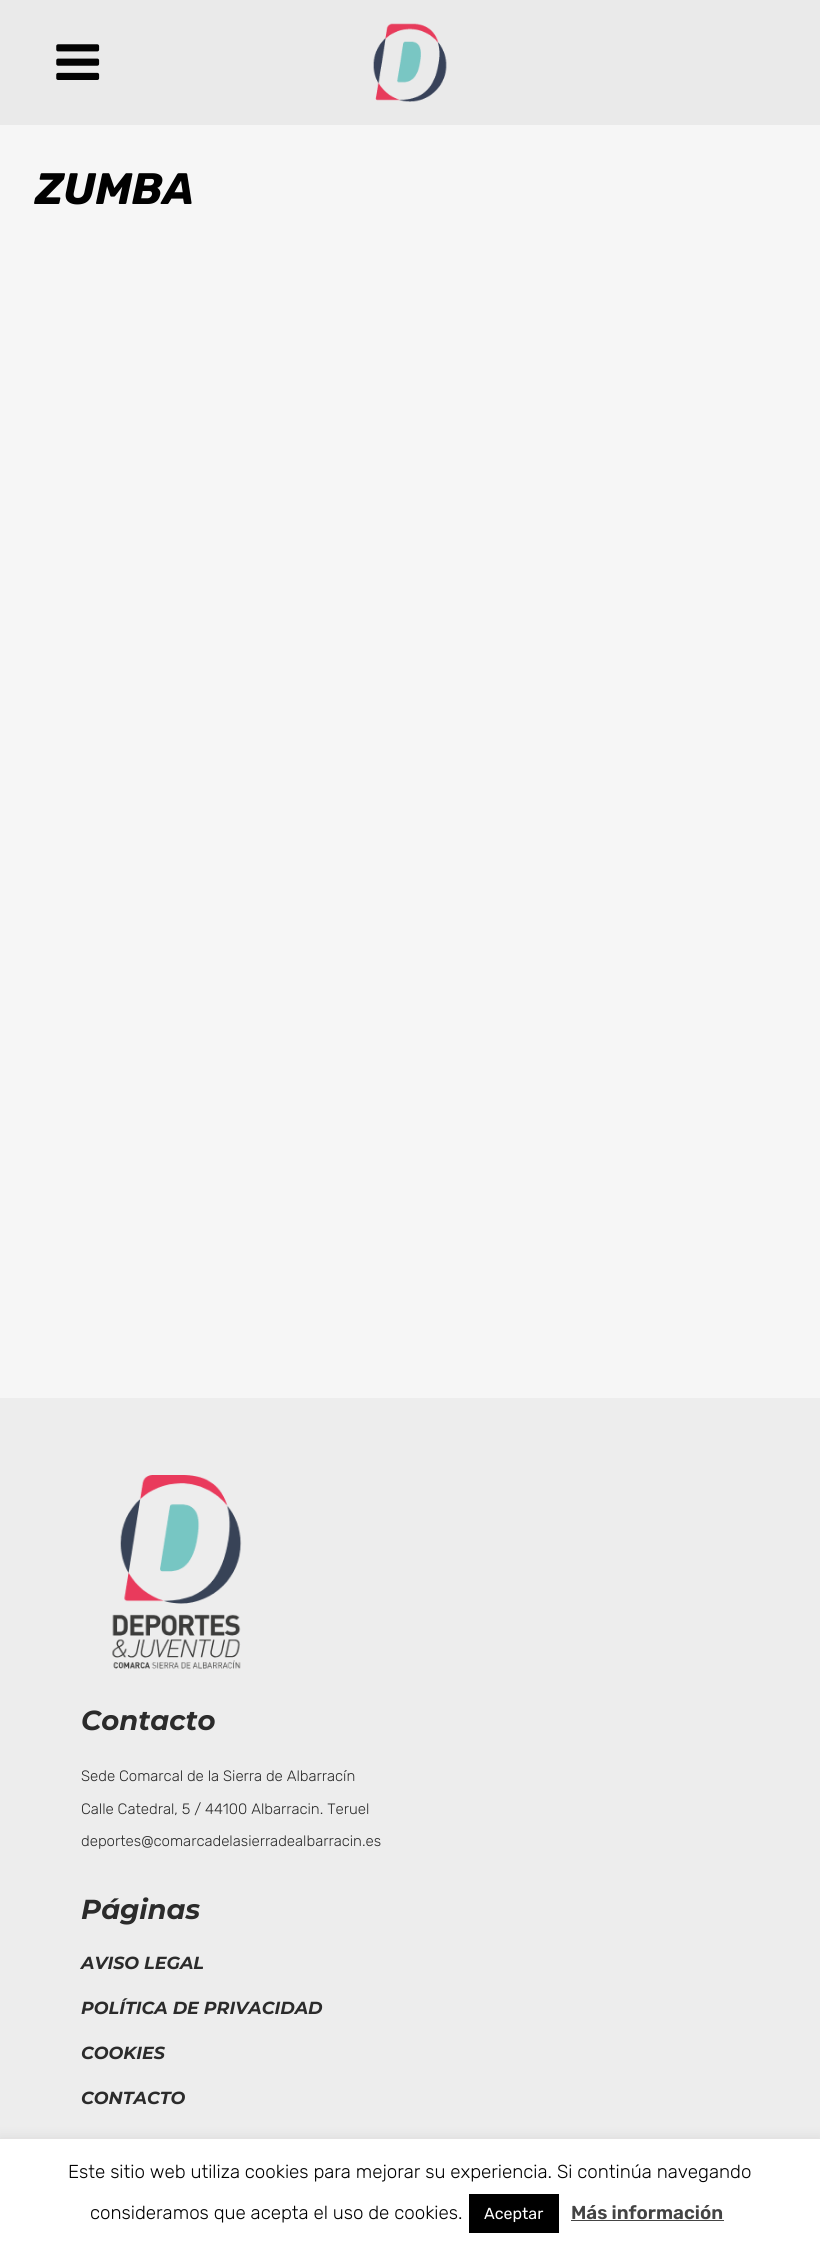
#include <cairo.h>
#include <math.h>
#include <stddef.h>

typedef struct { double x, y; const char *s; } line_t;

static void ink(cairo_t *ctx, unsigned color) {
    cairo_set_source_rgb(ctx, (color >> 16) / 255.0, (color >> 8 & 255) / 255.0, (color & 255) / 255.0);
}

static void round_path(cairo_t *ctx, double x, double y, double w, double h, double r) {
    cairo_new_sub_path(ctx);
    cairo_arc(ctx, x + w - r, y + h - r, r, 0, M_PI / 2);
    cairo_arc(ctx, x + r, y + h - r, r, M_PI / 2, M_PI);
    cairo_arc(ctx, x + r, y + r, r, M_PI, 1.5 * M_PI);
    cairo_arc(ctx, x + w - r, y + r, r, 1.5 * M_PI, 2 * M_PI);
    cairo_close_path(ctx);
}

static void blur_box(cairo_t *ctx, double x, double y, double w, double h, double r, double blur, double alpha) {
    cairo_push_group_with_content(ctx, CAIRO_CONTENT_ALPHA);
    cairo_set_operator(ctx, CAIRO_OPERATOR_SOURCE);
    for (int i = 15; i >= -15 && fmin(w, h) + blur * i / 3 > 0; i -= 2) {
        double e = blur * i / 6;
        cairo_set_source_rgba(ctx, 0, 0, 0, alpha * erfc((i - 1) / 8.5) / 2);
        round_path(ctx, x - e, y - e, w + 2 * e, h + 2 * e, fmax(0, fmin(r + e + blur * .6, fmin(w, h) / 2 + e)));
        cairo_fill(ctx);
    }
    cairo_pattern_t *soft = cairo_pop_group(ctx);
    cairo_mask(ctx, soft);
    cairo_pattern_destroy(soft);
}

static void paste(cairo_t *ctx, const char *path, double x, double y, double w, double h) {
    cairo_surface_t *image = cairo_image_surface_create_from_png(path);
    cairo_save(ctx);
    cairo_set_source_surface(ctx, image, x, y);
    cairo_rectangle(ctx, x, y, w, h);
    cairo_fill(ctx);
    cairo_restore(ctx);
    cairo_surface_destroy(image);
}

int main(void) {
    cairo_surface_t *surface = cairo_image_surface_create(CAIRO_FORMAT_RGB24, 820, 2253);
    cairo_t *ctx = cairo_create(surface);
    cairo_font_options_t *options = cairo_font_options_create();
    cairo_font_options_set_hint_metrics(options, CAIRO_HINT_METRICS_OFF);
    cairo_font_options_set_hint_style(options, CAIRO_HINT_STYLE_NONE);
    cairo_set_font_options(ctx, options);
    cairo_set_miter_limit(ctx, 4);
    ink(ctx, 0xF6F6F6);
    cairo_paint(ctx);
    ink(ctx, 0xEAEAEA);
    cairo_rectangle(ctx, 0, 0, 820, 125);
    cairo_fill(ctx);
    paste(ctx, "media/1.png", 56, 44, 44, 36);
    paste(ctx, "media/2.png", 373, 23, 74, 79);
    cairo_select_font_face(ctx, "Rubik", CAIRO_FONT_SLANT_ITALIC, CAIRO_FONT_WEIGHT_BOLD);
    cairo_set_font_size(ctx, 44);
    ink(ctx, 0x010101);
    cairo_move_to(ctx, 35, 204);
    cairo_show_text(ctx, "ZUMBA");
    ink(ctx, 0xEDEDED);
    cairo_rectangle(ctx, 0, 1398, 820, 741);
    cairo_fill(ctx);
    paste(ctx, "media/3.png", 112, 1475, 130, 194);
    cairo_select_font_face(ctx, "Montserrat", CAIRO_FONT_SLANT_ITALIC, CAIRO_FONT_WEIGHT_BOLD);
    cairo_set_font_size(ctx, 27.5);
    ink(ctx, 0x2B2B2B);
    cairo_move_to(ctx, 81, 1730);
    cairo_show_text(ctx, "Contacto");
    cairo_select_font_face(ctx, "Rubik Light", CAIRO_FONT_SLANT_NORMAL, CAIRO_FONT_WEIGHT_NORMAL);
    cairo_set_font_size(ctx, 15);
    {
        static const line_t items[] = {
            {81, 1781, "Sede Comarcal de la Sierra de Albarracín"},
            {81, 1814, "Calle Catedral, 5 / 44100 Albarracin. Teruel"},
            {81, 1846, "deportes@comarcadelasierradealbarracin.es"},
        };
        for (size_t i = 0; i < sizeof items / sizeof *items; i++) {
            cairo_move_to(ctx, items[i].x, items[i].y);
            cairo_show_text(ctx, items[i].s);
        }
    }
    cairo_select_font_face(ctx, "Montserrat", CAIRO_FONT_SLANT_ITALIC, CAIRO_FONT_WEIGHT_BOLD);
    cairo_set_font_size(ctx, 27.5);
    cairo_move_to(ctx, 81, 1919);
    cairo_show_text(ctx, "Páginas");
    cairo_set_font_size(ctx, 17.5);
    {
        static const line_t items[] = {
            {81, 1969, "AVISO LEGAL"},
            {81, 2014, "POLÍTICA DE PRIVACIDAD"},
            {81, 2059, "COOKIES"},
            {81, 2104, "CONTACTO"},
        };
        for (size_t i = 0; i < sizeof items / sizeof *items; i++) {
            cairo_move_to(ctx, items[i].x, items[i].y);
            cairo_show_text(ctx, items[i].s);
        }
    }
    ink(ctx, 0xACABAB);
    blur_box(ctx, 0, 2138, 820, 115, 0, 6, 0.3);
    ink(ctx, 0xFFFFFF);
    cairo_rectangle(ctx, 0, 2139, 820, 114);
    cairo_fill(ctx);
    cairo_select_font_face(ctx, "Rubik Light", CAIRO_FONT_SLANT_NORMAL, CAIRO_FONT_WEIGHT_NORMAL);
    cairo_set_font_size(ctx, 18.75);
    ink(ctx, 0x010101);
    cairo_move_to(ctx, 68, 2178);
    cairo_show_text(ctx, "Este sitio web utiliza cookies para mejorar su experiencia. Si continúa navegando");
    cairo_move_to(ctx, 90, 2219);
    cairo_show_text(ctx, "consideramos que acepta el uso de cookies.");
    ink(ctx, 0x000000);
    cairo_rectangle(ctx, 469, 2194, 90, 39);
    cairo_fill(ctx);
    cairo_select_font_face(ctx, "Rubik", CAIRO_FONT_SLANT_NORMAL, CAIRO_FONT_WEIGHT_NORMAL);
    cairo_set_font_size(ctx, 16);
    ink(ctx, 0xFFFFFF);
    cairo_move_to(ctx, 484, 2219);
    cairo_show_text(ctx, "Aceptar");
    cairo_select_font_face(ctx, "Rubik SemiBold", CAIRO_FONT_SLANT_NORMAL, CAIRO_FONT_WEIGHT_NORMAL);
    cairo_set_font_size(ctx, 18.75);
    ink(ctx, 0x444444);
    cairo_move_to(ctx, 571, 2219);
    cairo_show_text(ctx, "Más información");
    cairo_rectangle(ctx, 571, 2220, 153, 1);
    cairo_fill(ctx);
    cairo_surface_write_to_png(surface, "image.png");
    cairo_font_options_destroy(options);
    cairo_destroy(ctx);
    cairo_surface_destroy(surface);
    return 0;
}
